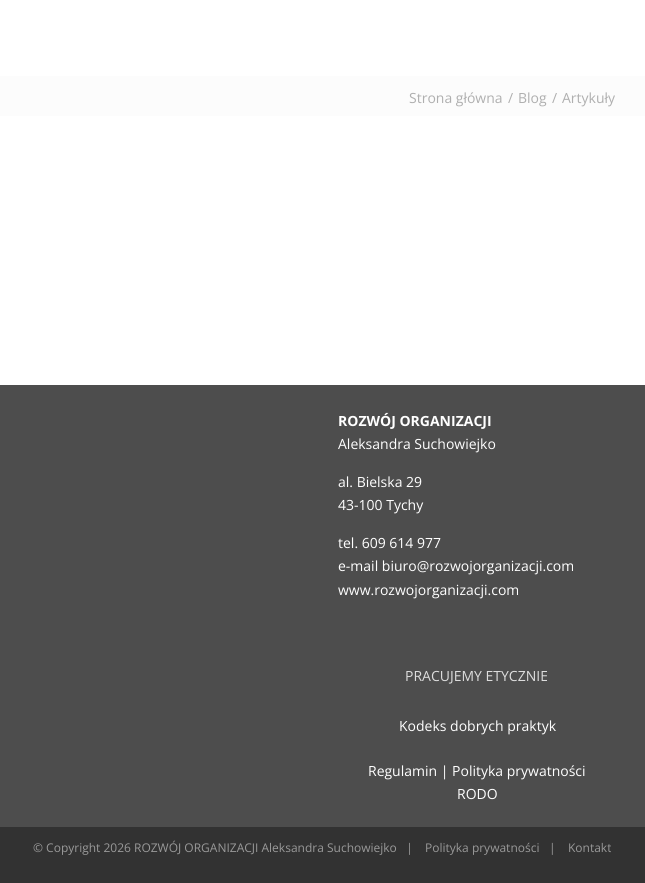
#include <cairo.h>
#include <math.h>
#include <stddef.h>

typedef struct { double x, y; const char *s; } line_t;

static void ink(cairo_t *ctx, unsigned color) {
    cairo_set_source_rgb(ctx, (color >> 16) / 255.0, (color >> 8 & 255) / 255.0, (color & 255) / 255.0);
}

int main(void) {
    cairo_surface_t *surface = cairo_image_surface_create(CAIRO_FORMAT_RGB24, 645, 883);
    cairo_t *ctx = cairo_create(surface);
    cairo_font_options_t *options = cairo_font_options_create();
    cairo_font_options_set_hint_metrics(options, CAIRO_HINT_METRICS_OFF);
    cairo_font_options_set_hint_style(options, CAIRO_HINT_STYLE_NONE);
    cairo_set_font_options(ctx, options);
    cairo_set_miter_limit(ctx, 4);
    ink(ctx, 0xFFFFFF);
    cairo_paint(ctx);
    ink(ctx, 0xFCFCFC);
    cairo_rectangle(ctx, 0, 76, 645, 40);
    cairo_fill(ctx);
    cairo_select_font_face(ctx, "Open Sans", CAIRO_FONT_SLANT_NORMAL, CAIRO_FONT_WEIGHT_NORMAL);
    cairo_set_font_size(ctx, 14);
    ink(ctx, 0xAFAFAF);
    {
        static const line_t items[] = {
            {409, 103, "Strona główna"},
            {508, 103, "/"},
            {518, 103, "Blog"},
            {552, 103, "/"},
            {562, 103, "Artykuły"},
        };
        for (size_t i = 0; i < sizeof items / sizeof *items; i++) {
            cairo_move_to(ctx, items[i].x, items[i].y);
            cairo_show_text(ctx, items[i].s);
        }
    }
    ink(ctx, 0x4D4D4D);
    cairo_rectangle(ctx, 0, 385, 645, 442);
    cairo_fill(ctx);
    cairo_select_font_face(ctx, "Open Sans", CAIRO_FONT_SLANT_NORMAL, CAIRO_FONT_WEIGHT_BOLD);
    ink(ctx, 0xFFFFFF);
    cairo_move_to(ctx, 338, 426);
    cairo_show_text(ctx, "ROZWÓJ ORGANIZACJI");
    cairo_select_font_face(ctx, "Open Sans", CAIRO_FONT_SLANT_NORMAL, CAIRO_FONT_WEIGHT_NORMAL);
    {
        static const line_t items[] = {
            {338, 449, "Aleksandra Suchowiejko"},
            {338, 487, "al. Bielska 29"},
            {338, 510, "43-100 Tychy"},
            {338, 548, "tel. 609 614 977"},
            {338, 571, "e-mail biuro@rozwojorganizacji.com"},
            {338, 595, "www.rozwojorganizacji.com"},
        };
        for (size_t i = 0; i < sizeof items / sizeof *items; i++) {
            cairo_move_to(ctx, items[i].x, items[i].y);
            cairo_show_text(ctx, items[i].s);
        }
    }
    ink(ctx, 0xDDDDDD);
    cairo_move_to(ctx, 405, 681);
    cairo_show_text(ctx, "PRACUJEMY ETYCZNIE");
    ink(ctx, 0xFFFFFF);
    {
        static const line_t items[] = {
            {399, 731, "Kodeks dobrych praktyk"},
            {368, 776, "Regulamin | Polityka prywatności"},
            {457, 799, "RODO"},
        };
        for (size_t i = 0; i < sizeof items / sizeof *items; i++) {
            cairo_move_to(ctx, items[i].x, items[i].y);
            cairo_show_text(ctx, items[i].s);
        }
    }
    ink(ctx, 0x323232);
    cairo_rectangle(ctx, 0, 827, 645, 56);
    cairo_fill(ctx);
    cairo_set_font_size(ctx, 12);
    ink(ctx, 0x999999);
    {
        static const line_t items[] = {
            {33, 852, "© Copyright 2026 ROZWÓJ ORGANIZACJI Aleksandra Suchowiejko   |"},
            {425, 852, "Polityka prywatności"},
            {549, 852, "|"},
            {568, 852, "Kontakt"},
        };
        for (size_t i = 0; i < sizeof items / sizeof *items; i++) {
            cairo_move_to(ctx, items[i].x, items[i].y);
            cairo_show_text(ctx, items[i].s);
        }
    }
    cairo_surface_write_to_png(surface, "image.png");
    cairo_font_options_destroy(options);
    cairo_destroy(ctx);
    cairo_surface_destroy(surface);
    return 0;
}
